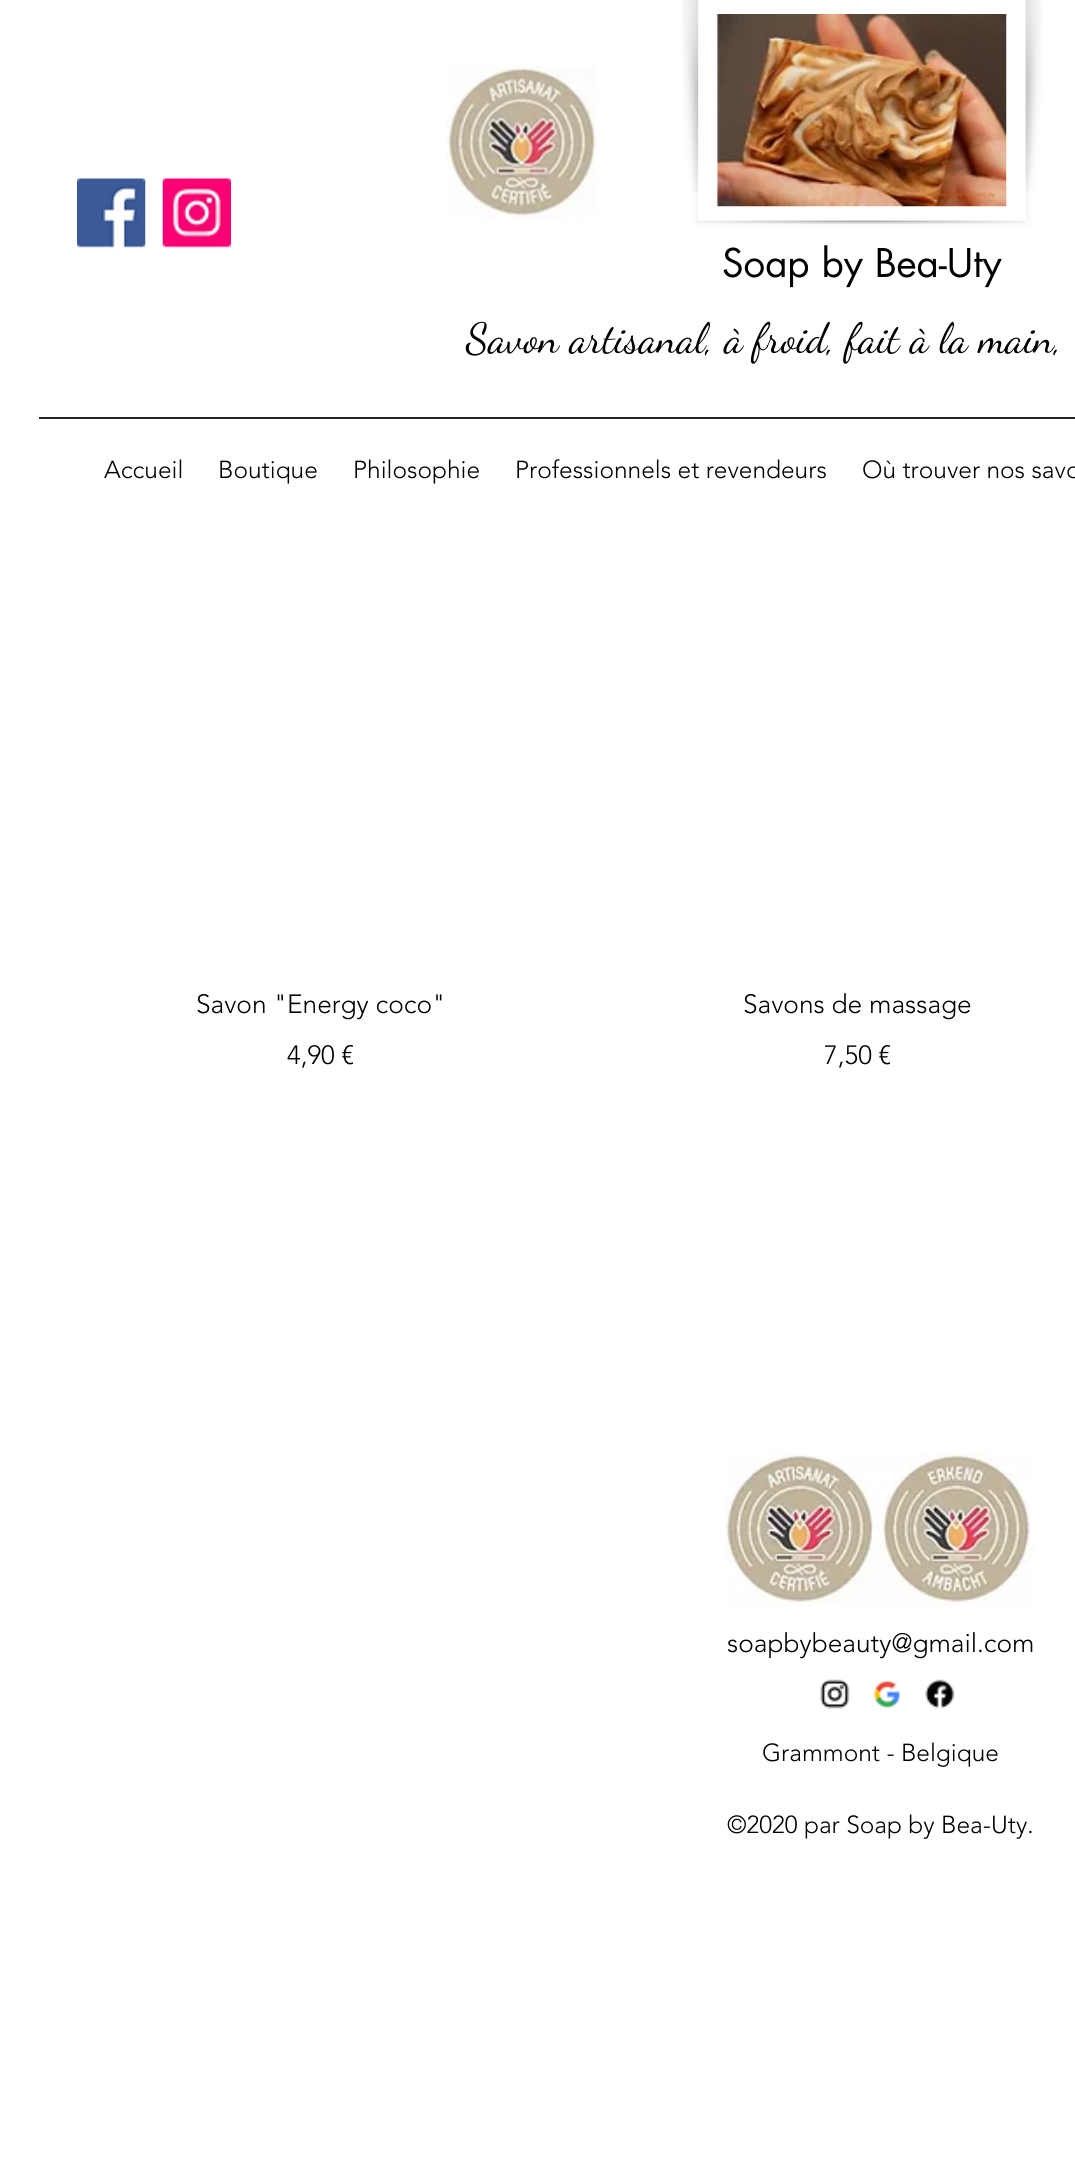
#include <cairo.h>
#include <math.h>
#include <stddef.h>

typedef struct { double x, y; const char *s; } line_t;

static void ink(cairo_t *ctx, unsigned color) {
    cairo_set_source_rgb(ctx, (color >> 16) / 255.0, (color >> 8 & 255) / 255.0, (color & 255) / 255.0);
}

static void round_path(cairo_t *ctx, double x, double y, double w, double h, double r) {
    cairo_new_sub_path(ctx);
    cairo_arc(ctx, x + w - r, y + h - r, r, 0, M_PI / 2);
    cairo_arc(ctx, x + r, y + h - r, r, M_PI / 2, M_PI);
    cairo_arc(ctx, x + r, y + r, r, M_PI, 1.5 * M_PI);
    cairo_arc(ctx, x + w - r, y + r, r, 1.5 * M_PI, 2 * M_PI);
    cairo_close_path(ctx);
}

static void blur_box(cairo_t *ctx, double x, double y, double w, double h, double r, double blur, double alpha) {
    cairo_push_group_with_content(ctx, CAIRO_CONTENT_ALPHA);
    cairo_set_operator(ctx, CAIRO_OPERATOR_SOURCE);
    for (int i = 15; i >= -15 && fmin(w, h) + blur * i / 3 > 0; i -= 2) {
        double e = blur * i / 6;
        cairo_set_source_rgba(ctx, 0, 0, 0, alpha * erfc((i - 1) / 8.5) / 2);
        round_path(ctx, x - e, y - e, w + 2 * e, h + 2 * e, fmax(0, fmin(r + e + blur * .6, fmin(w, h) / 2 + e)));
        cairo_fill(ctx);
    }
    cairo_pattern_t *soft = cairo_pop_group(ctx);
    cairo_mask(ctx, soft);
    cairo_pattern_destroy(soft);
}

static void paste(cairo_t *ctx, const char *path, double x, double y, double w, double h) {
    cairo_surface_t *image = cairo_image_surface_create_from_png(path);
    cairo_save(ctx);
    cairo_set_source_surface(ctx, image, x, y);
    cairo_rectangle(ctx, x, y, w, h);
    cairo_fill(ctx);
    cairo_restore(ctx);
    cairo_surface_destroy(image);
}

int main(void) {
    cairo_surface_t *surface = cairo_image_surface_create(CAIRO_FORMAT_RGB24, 1075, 2181);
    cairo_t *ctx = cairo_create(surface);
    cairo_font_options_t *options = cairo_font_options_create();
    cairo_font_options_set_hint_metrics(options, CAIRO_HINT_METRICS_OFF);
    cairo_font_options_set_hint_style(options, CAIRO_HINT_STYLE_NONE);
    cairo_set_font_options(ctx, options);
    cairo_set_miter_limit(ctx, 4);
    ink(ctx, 0xFFFFFF);
    cairo_paint(ctx);
    paste(ctx, "media/1.png", 77, 178, 69, 70);
    paste(ctx, "media/2.png", 162, 178, 69, 70);
    paste(ctx, "media/3.png", 446, 66, 151, 154);
    ink(ctx, 0x000000);
    blur_box(ctx, 698, 0, 328, 221, 0, 4.5, 0.1);
    ink(ctx, 0xFFFFFF);
    cairo_rectangle(ctx, 698, 0, 328, 221);
    cairo_fill(ctx);
    paste(ctx, "media/4.png", 682, 0, 17, 192);
    paste(ctx, "media/5.png", 717, 14, 290, 193);
    paste(ctx, "media/6.png", 701, 220, 322, 4);
    paste(ctx, "media/7.png", 1025, 0, 17, 191);
    cairo_select_font_face(ctx, "futura", CAIRO_FONT_SLANT_NORMAL, CAIRO_FONT_WEIGHT_NORMAL);
    cairo_set_font_size(ctx, 38.5);
    ink(ctx, 0x000000);
    cairo_move_to(ctx, 722, 277);
    cairo_show_text(ctx, "Soap by Bea-Uty");
    cairo_select_font_face(ctx, "Dancing Script", CAIRO_FONT_SLANT_NORMAL, CAIRO_FONT_WEIGHT_NORMAL);
    cairo_set_font_size(ctx, 42);
    cairo_move_to(ctx, 466, 352);
    cairo_show_text(ctx, "Savon artisanal, à froid, fait à la main,");
    ink(ctx, 0x262626);
    cairo_rectangle(ctx, 39, 417, 1036, 2);
    cairo_fill(ctx);
    cairo_select_font_face(ctx, "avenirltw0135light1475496 Light", CAIRO_FONT_SLANT_NORMAL, CAIRO_FONT_WEIGHT_NORMAL);
    cairo_set_font_size(ctx, 24.5);
    ink(ctx, 0x000000);
    {
        static const line_t items[] = {
            {104, 478, "Accueil"},
            {218, 478, "Boutique"},
            {353, 478, "Philosophie"},
            {515, 478, "Professionnels et revendeurs"},
            {862, 478, "Où trouver nos savo"},
        };
        for (size_t i = 0; i < sizeof items / sizeof *items; i++) {
            cairo_move_to(ctx, items[i].x, items[i].y);
            cairo_show_text(ctx, items[i].s);
        }
    }
    cairo_set_font_size(ctx, 26.25);
    {
        static const line_t items[] = {
            {196, 1013, "Savon \"Energy coco\""},
            {287, 1064, "4,90 €"},
            {743, 1013, "Savons de massage"},
            {824, 1064, "7,50 €"},
        };
        for (size_t i = 0; i < sizeof items / sizeof *items; i++) {
            cairo_move_to(ctx, items[i].x, items[i].y);
            cairo_show_text(ctx, items[i].s);
        }
    }
    paste(ctx, "media/8.png", 725, 1453, 310, 153);
    cairo_move_to(ctx, 727, 1652);
    cairo_show_text(ctx, "soapbybeauty@gmail.com");
    paste(ctx, "media/9.png", 820, 1679, 30, 30);
    paste(ctx, "media/10.png", 873, 1680, 27, 29);
    paste(ctx, "media/11.png", 925, 1679, 30, 30);
    cairo_set_font_size(ctx, 24.5);
    cairo_move_to(ctx, 762, 1761);
    cairo_show_text(ctx, "Grammont - Belgique");
    cairo_move_to(ctx, 727, 1833);
    cairo_show_text(ctx, "©2020 par Soap by Bea-Uty.");
    cairo_surface_write_to_png(surface, "image.png");
    cairo_font_options_destroy(options);
    cairo_destroy(ctx);
    cairo_surface_destroy(surface);
    return 0;
}
